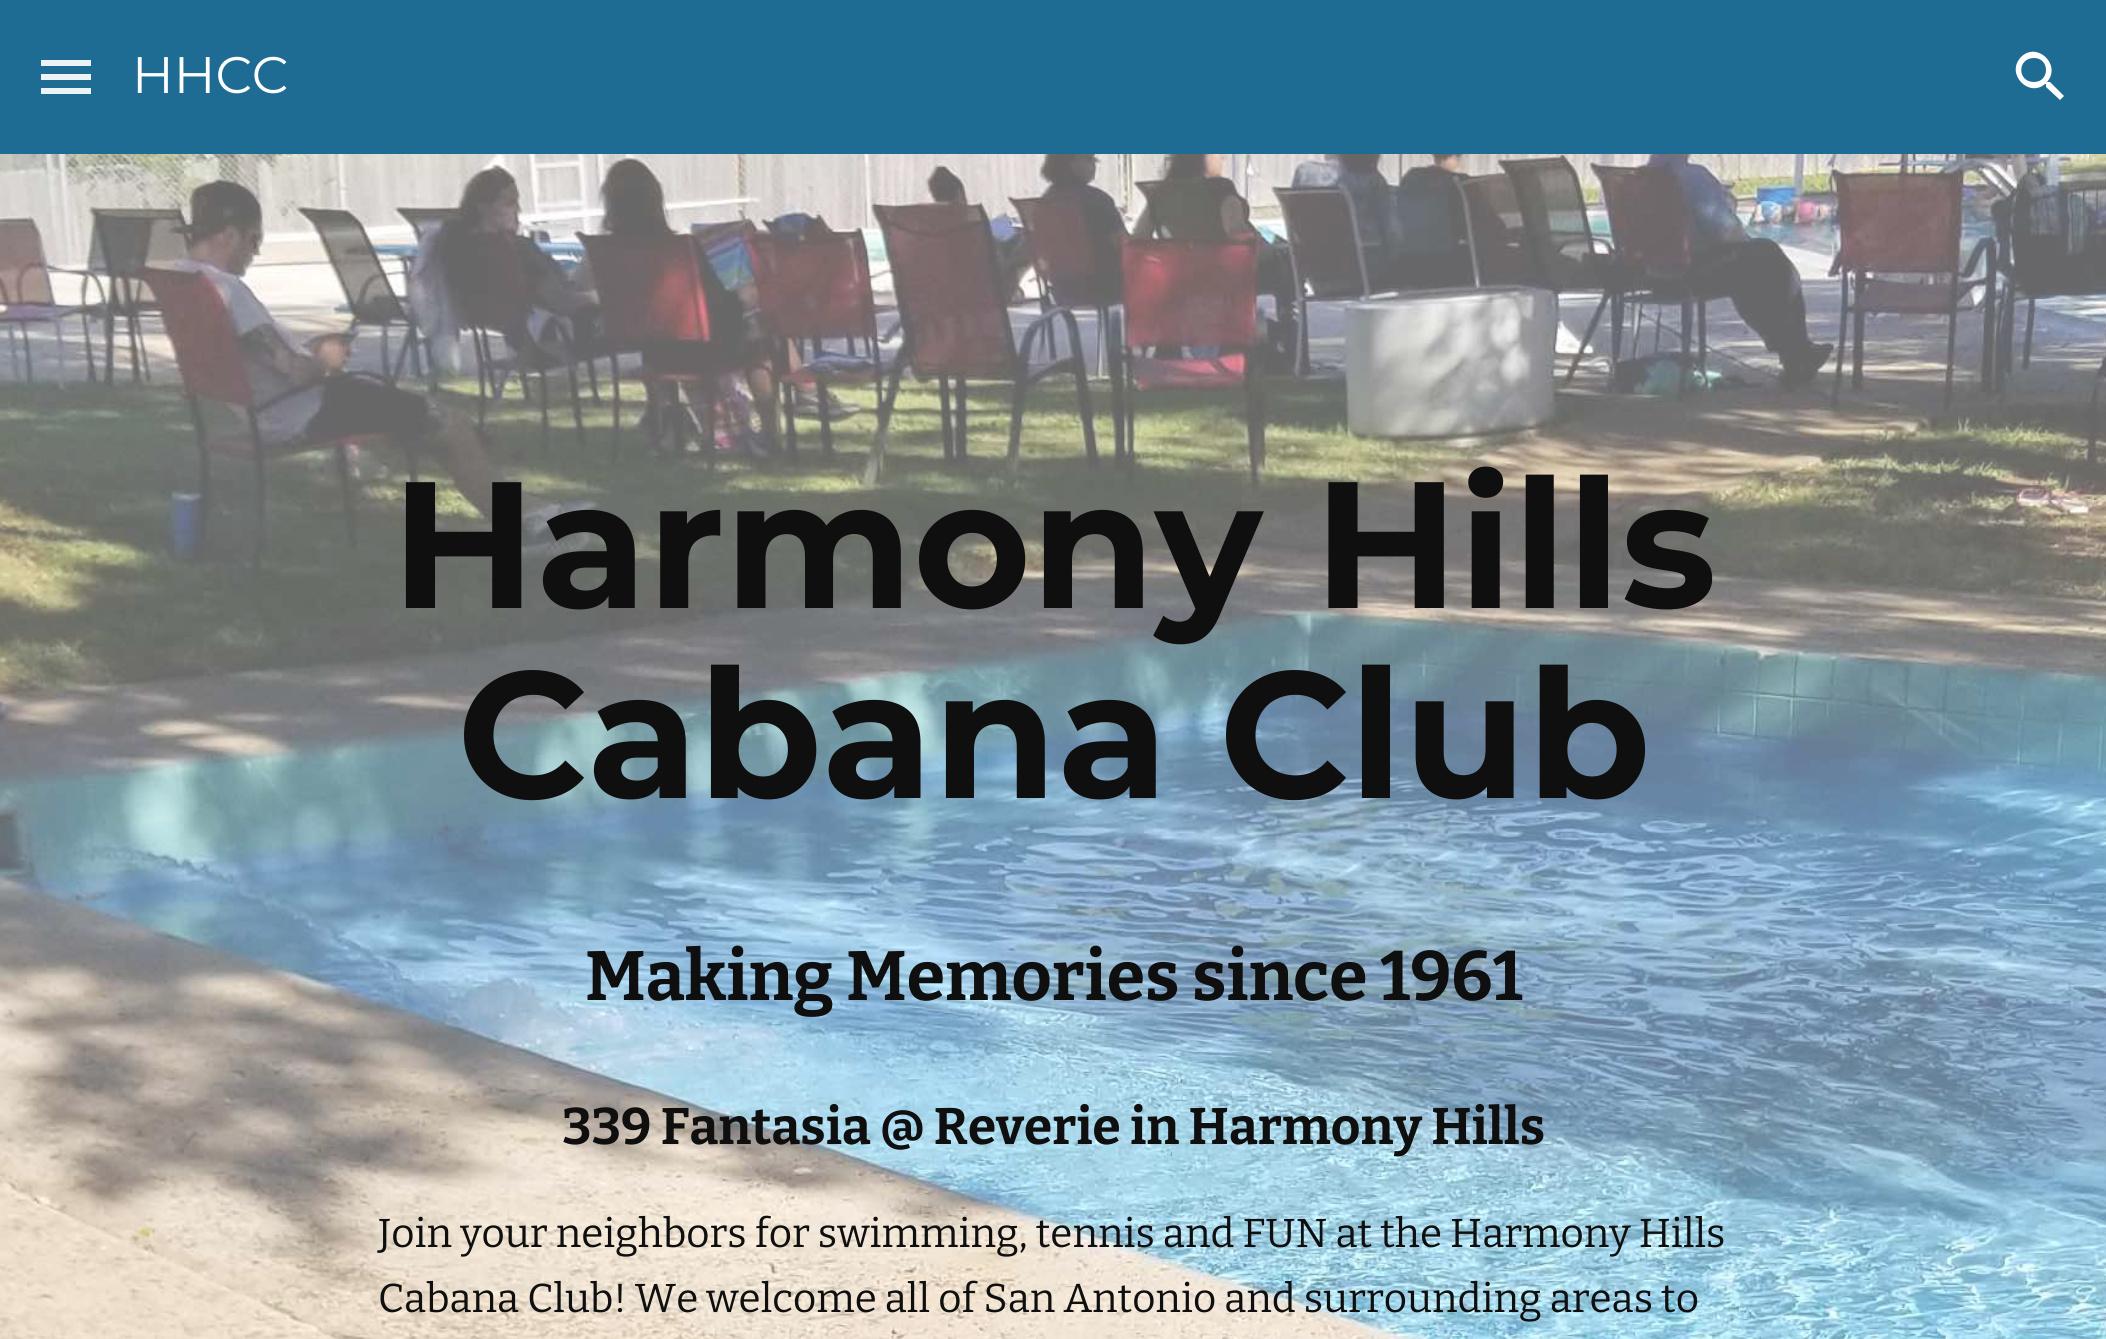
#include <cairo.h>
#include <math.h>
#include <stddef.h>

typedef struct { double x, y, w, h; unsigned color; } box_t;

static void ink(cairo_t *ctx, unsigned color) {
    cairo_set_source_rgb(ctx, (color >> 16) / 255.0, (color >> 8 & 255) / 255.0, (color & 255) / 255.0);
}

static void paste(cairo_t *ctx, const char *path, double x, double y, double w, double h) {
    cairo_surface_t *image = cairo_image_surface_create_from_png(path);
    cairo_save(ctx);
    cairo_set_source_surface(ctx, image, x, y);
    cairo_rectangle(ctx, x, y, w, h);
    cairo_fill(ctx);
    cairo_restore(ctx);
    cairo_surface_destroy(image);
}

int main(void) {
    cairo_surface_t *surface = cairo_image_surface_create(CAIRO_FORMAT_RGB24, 2106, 1339);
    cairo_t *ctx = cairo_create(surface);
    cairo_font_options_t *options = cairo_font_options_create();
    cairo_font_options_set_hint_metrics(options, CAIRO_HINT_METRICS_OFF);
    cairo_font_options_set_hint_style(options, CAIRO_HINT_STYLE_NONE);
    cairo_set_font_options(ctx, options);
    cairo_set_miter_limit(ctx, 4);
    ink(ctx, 0xFFFFFF);
    cairo_paint(ctx);
    {
        static const box_t items[] = {
            {0, 0, 2106, 154, 0x1E6C93},
            {41, 60, 50, 6, 0xECF3F6},
            {41, 74, 50, 6, 0xECF3F6},
            {41, 88, 50, 6, 0xECF3F6},
        };
        for (size_t i = 0; i < sizeof items / sizeof *items; i++) {
            ink(ctx, items[i].color);
            cairo_rectangle(ctx, items[i].x, items[i].y, items[i].w, items[i].h);
            cairo_fill(ctx);
        }
    }
    cairo_select_font_face(ctx, "Montserrat", CAIRO_FONT_SLANT_NORMAL, CAIRO_FONT_WEIGHT_NORMAL);
    cairo_set_font_size(ctx, 51.3);
    ink(ctx, 0xFFFFFF);
    cairo_move_to(ctx, 132, 93);
    cairo_show_text(ctx, "HHCC");
    cairo_new_path(ctx);
    cairo_move_to(ctx, 2050, 82);
    cairo_line_to(ctx, 2048, 82);
    cairo_line_to(ctx, 2047, 82);
    cairo_curve_to(ctx, 2062, 65, 2037, 41, 2021, 57);
    cairo_curve_to(ctx, 2005, 74, 2029, 98, 2045, 84);
    cairo_line_to(ctx, 2046, 84);
    cairo_line_to(ctx, 2046, 87);
    cairo_line_to(ctx, 2060, 100);
    cairo_line_to(ctx, 2064, 96);
    cairo_close_path(ctx);
    cairo_move_to(ctx, 2034, 82);
    cairo_curve_to(ctx, 2017, 82, 2017, 58, 2034, 58);
    cairo_curve_to(ctx, 2050, 58, 2050, 82, 2034, 82);
    cairo_close_path(ctx);
    cairo_fill(ctx);
    paste(ctx, "media/1.png", 0, 154, 2106, 1185);
    cairo_select_font_face(ctx, "Montserrat", CAIRO_FONT_SLANT_NORMAL, CAIRO_FONT_WEIGHT_BOLD);
    cairo_set_font_size(ctx, 179.75);
    ink(ctx, 0x0F0F0F);
    cairo_move_to(ctx, 391, 608);
    cairo_show_text(ctx, "Harmony Hills");
    cairo_move_to(ctx, 457, 798);
    cairo_show_text(ctx, "Cabana Club");
    cairo_select_font_face(ctx, "Bitter", CAIRO_FONT_SLANT_NORMAL, CAIRO_FONT_WEIGHT_BOLD);
    cairo_set_font_size(ctx, 69.7);
    cairo_move_to(ctx, 585, 1000);
    cairo_show_text(ctx, "Making Memories since 1961");
    cairo_set_font_size(ctx, 51.3);
    cairo_move_to(ctx, 562, 1144);
    cairo_show_text(ctx, "339 Fantasia @ Reverie in Harmony Hills");
    cairo_select_font_face(ctx, "Bitter", CAIRO_FONT_SLANT_NORMAL, CAIRO_FONT_WEIGHT_NORMAL);
    cairo_set_font_size(ctx, 40.35);
    cairo_move_to(ctx, 378, 1247);
    cairo_show_text(ctx, "Join your neighbors for swimming, tennis and FUN at the Harmony Hills");
    cairo_move_to(ctx, 378, 1312);
    cairo_show_text(ctx, "Cabana Club! We welcome all of San Antonio and surrounding areas to");
    cairo_surface_write_to_png(surface, "image.png");
    cairo_font_options_destroy(options);
    cairo_destroy(ctx);
    cairo_surface_destroy(surface);
    return 0;
}
